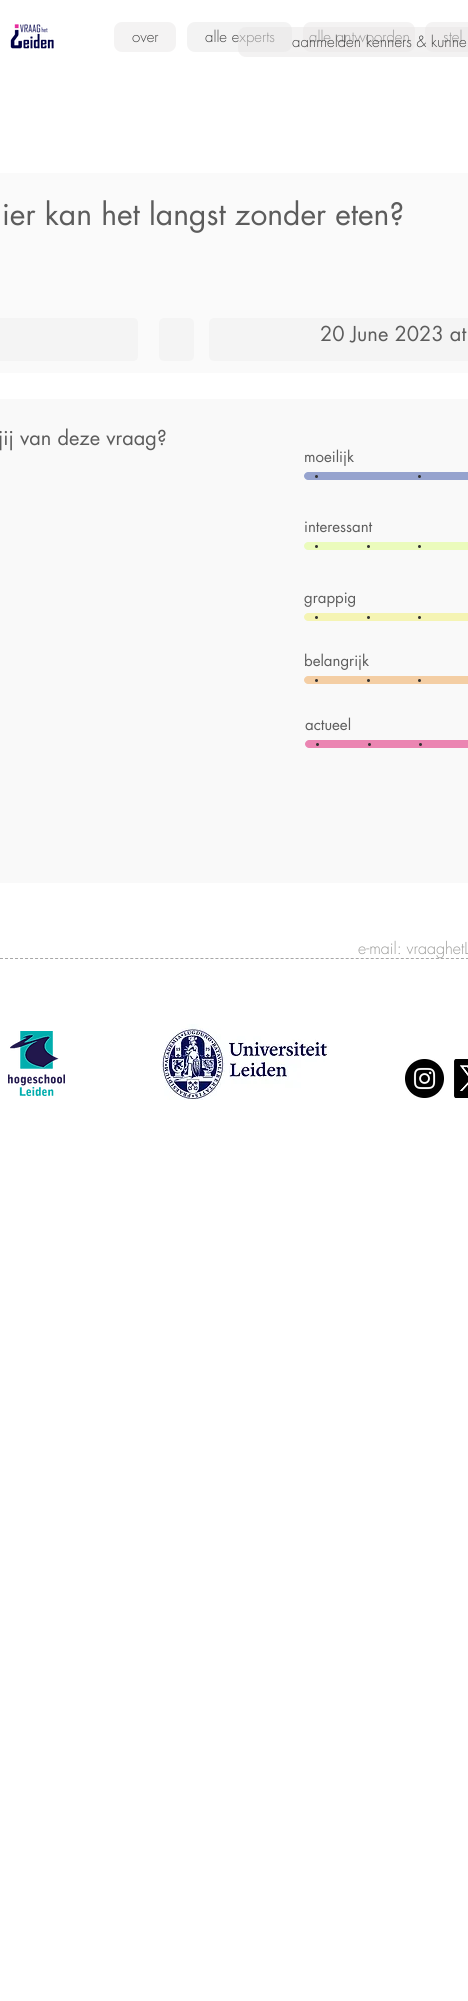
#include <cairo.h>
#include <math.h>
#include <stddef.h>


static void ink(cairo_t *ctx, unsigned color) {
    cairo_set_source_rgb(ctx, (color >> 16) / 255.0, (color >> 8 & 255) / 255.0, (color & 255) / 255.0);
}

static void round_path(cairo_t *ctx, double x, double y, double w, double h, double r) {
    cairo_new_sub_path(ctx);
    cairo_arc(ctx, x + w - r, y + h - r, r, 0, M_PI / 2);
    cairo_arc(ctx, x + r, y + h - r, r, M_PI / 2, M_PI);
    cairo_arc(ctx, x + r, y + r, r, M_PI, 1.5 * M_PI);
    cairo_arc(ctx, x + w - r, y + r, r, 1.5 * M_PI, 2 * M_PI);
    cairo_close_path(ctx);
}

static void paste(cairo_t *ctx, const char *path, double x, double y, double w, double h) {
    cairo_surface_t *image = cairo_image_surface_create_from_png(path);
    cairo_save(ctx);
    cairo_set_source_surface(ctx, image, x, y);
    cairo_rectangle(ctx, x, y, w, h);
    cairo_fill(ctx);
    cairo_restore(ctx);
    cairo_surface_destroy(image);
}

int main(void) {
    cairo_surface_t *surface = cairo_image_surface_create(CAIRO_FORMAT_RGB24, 468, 2001);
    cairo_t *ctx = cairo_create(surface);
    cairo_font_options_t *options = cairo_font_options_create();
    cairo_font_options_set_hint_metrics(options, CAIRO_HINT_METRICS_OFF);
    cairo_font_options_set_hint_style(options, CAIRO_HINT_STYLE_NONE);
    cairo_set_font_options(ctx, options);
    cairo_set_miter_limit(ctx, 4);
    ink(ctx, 0xFFFFFF);
    cairo_paint(ctx);
    paste(ctx, "media/1.png", 10, 24, 44, 25);
    ink(ctx, 0xF4F3F3);
    round_path(ctx, 114, 22, 62, 30, 8);
    cairo_fill(ctx);
    cairo_select_font_face(ctx, "futura Light", CAIRO_FONT_SLANT_NORMAL, CAIRO_FONT_WEIGHT_NORMAL);
    cairo_set_font_size(ctx, 15);
    ink(ctx, 0x414141);
    cairo_move_to(ctx, 132, 42);
    cairo_show_text(ctx, "over");
    ink(ctx, 0xF3F3F3);
    round_path(ctx, 187, 22, 105, 30, 8);
    cairo_fill(ctx);
    ink(ctx, 0x414141);
    cairo_move_to(ctx, 205, 42);
    cairo_show_text(ctx, "alle experts");
    ink(ctx, 0xF4F3F3);
    round_path(ctx, 303, 22, 112, 30, 8);
    cairo_fill(ctx);
    ink(ctx, 0x414141);
    cairo_move_to(ctx, 309, 42);
    cairo_show_text(ctx, "alle antwoorden");
    ink(ctx, 0xF4F3F3);
    round_path(ctx, 425, 22, 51, 30, 8);
    cairo_fill(ctx);
    ink(ctx, 0x414141);
    cairo_move_to(ctx, 443, 42);
    cairo_show_text(ctx, "stel");
    cairo_set_source_rgba(ctx, 0.91, 0.902, 0.902, 0.5);
    round_path(ctx, 238, 27, 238, 30, 8);
    cairo_fill(ctx);
    ink(ctx, 0x414141);
    cairo_move_to(ctx, 292, 47);
    cairo_show_text(ctx, "aanmelden kenners & kunne");
    ink(ctx, 0xFAFAFA);
    cairo_rectangle(ctx, 0, 173, 468, 200);
    cairo_fill(ctx);
    cairo_select_font_face(ctx, "futura", CAIRO_FONT_SLANT_NORMAL, CAIRO_FONT_WEIGHT_NORMAL);
    cairo_set_font_size(ctx, 30);
    ink(ctx, 0x5C5C5C);
    cairo_move_to(ctx, 2, 225);
    cairo_show_text(ctx, "ier kan het langst zonder eten?");
    ink(ctx, 0xF4F4F4);
    cairo_new_path(ctx);
    cairo_move_to(ctx, 0, 318);
    cairo_line_to(ctx, 133, 318);
    cairo_curve_to(ctx, 136, 318, 138, 320, 138, 323);
    cairo_line_to(ctx, 138, 356);
    cairo_curve_to(ctx, 138, 359, 136, 361, 133, 361);
    cairo_line_to(ctx, 0, 361);
    cairo_close_path(ctx);
    cairo_fill(ctx);
    round_path(ctx, 159, 318, 35, 43, 5);
    cairo_fill(ctx);
    round_path(ctx, 209, 318, 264, 43, 5);
    cairo_fill(ctx);
    cairo_set_font_size(ctx, 20);
    ink(ctx, 0x5C5C5C);
    cairo_move_to(ctx, 320, 341);
    cairo_show_text(ctx, "20 June 2023 at");
    ink(ctx, 0xF9F9F9);
    cairo_rectangle(ctx, 0, 399, 468, 484);
    cairo_fill(ctx);
    ink(ctx, 0x5C5C5C);
    cairo_move_to(ctx, -2, 445);
    cairo_show_text(ctx, "jij van deze vraag?");
    cairo_set_font_size(ctx, 15);
    cairo_move_to(ctx, 304, 462);
    cairo_show_text(ctx, "moeilijk");
    ink(ctx, 0xEAF7FF);
    round_path(ctx, 304, 472, 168, 8, 4);
    cairo_fill(ctx);
    cairo_set_source_rgba(ctx, 0.263, 0.314, 0.62, 0.5);
    cairo_new_path(ctx);
    cairo_move_to(ctx, 308, 472);
    cairo_line_to(ctx, 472, 472);
    cairo_line_to(ctx, 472, 476);
    cairo_curve_to(ctx, 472, 478, 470, 480, 468, 480);
    cairo_line_to(ctx, 308, 480);
    cairo_curve_to(ctx, 306, 480, 304, 478, 304, 476);
    cairo_curve_to(ctx, 304, 474, 306, 472, 308, 472);
    cairo_close_path(ctx);
    cairo_fill(ctx);
    ink(ctx, 0x323232);
    cairo_arc(ctx, 316.5, 476.5, 1.5, 0, 2 * M_PI);
    cairo_fill(ctx);
    cairo_arc(ctx, 419.5, 476.5, 1.5, 0, 2 * M_PI);
    cairo_fill(ctx);
    ink(ctx, 0x5C5C5C);
    cairo_move_to(ctx, 304, 532);
    cairo_show_text(ctx, "interessant");
    ink(ctx, 0xEAF7FF);
    round_path(ctx, 304, 542, 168, 8, 4);
    cairo_fill(ctx);
    cairo_set_source_rgba(ctx, 0.922, 1, 0.478, 0.5);
    cairo_new_path(ctx);
    cairo_move_to(ctx, 308, 542);
    cairo_line_to(ctx, 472, 542);
    cairo_line_to(ctx, 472, 546);
    cairo_curve_to(ctx, 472, 548, 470, 550, 468, 550);
    cairo_line_to(ctx, 308, 550);
    cairo_curve_to(ctx, 306, 550, 304, 548, 304, 546);
    cairo_curve_to(ctx, 304, 544, 306, 542, 308, 542);
    cairo_close_path(ctx);
    cairo_fill(ctx);
    ink(ctx, 0x323232);
    cairo_arc(ctx, 316.5, 546.5, 1.5, 0, 2 * M_PI);
    cairo_fill(ctx);
    cairo_arc(ctx, 368.5, 546.5, 1.5, 0, 2 * M_PI);
    cairo_fill(ctx);
    cairo_arc(ctx, 419.5, 546.5, 1.5, 0, 2 * M_PI);
    cairo_fill(ctx);
    ink(ctx, 0x5C5C5C);
    cairo_move_to(ctx, 304, 603);
    cairo_show_text(ctx, "grappig");
    ink(ctx, 0xEAF7FF);
    round_path(ctx, 304, 613, 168, 8, 4);
    cairo_fill(ctx);
    cairo_set_source_rgba(ctx, 1, 0.953, 0.416, 0.5);
    cairo_new_path(ctx);
    cairo_move_to(ctx, 308, 613);
    cairo_line_to(ctx, 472, 613);
    cairo_line_to(ctx, 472, 617);
    cairo_curve_to(ctx, 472, 619, 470, 621, 468, 621);
    cairo_line_to(ctx, 308, 621);
    cairo_curve_to(ctx, 306, 621, 304, 619, 304, 617);
    cairo_curve_to(ctx, 304, 615, 306, 613, 308, 613);
    cairo_close_path(ctx);
    cairo_fill(ctx);
    ink(ctx, 0x323232);
    cairo_arc(ctx, 316.5, 617.5, 1.5, 0, 2 * M_PI);
    cairo_fill(ctx);
    cairo_arc(ctx, 368.5, 617.5, 1.5, 0, 2 * M_PI);
    cairo_fill(ctx);
    cairo_arc(ctx, 419.5, 617.5, 1.5, 0, 2 * M_PI);
    cairo_fill(ctx);
    ink(ctx, 0x5C5C5C);
    cairo_move_to(ctx, 304, 666);
    cairo_show_text(ctx, "belangrijk");
    ink(ctx, 0xEAF7FF);
    round_path(ctx, 304, 676, 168, 8, 4);
    cairo_fill(ctx);
    cairo_set_source_rgba(ctx, 0.996, 0.651, 0.29, 0.5);
    cairo_new_path(ctx);
    cairo_move_to(ctx, 308, 676);
    cairo_line_to(ctx, 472, 676);
    cairo_line_to(ctx, 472, 680);
    cairo_curve_to(ctx, 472, 682, 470, 684, 468, 684);
    cairo_line_to(ctx, 308, 684);
    cairo_curve_to(ctx, 306, 684, 304, 682, 304, 680);
    cairo_curve_to(ctx, 304, 678, 306, 676, 308, 676);
    cairo_close_path(ctx);
    cairo_fill(ctx);
    ink(ctx, 0x323232);
    cairo_arc(ctx, 316.5, 680.5, 1.5, 0, 2 * M_PI);
    cairo_fill(ctx);
    cairo_arc(ctx, 368.5, 680.5, 1.5, 0, 2 * M_PI);
    cairo_fill(ctx);
    cairo_arc(ctx, 419.5, 680.5, 1.5, 0, 2 * M_PI);
    cairo_fill(ctx);
    ink(ctx, 0x5C5C5C);
    cairo_move_to(ctx, 305, 730);
    cairo_show_text(ctx, "actueel");
    ink(ctx, 0xEAF7FF);
    round_path(ctx, 305, 740, 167, 8, 4);
    cairo_fill(ctx);
    cairo_set_source_rgba(ctx, 0.929, 0.082, 0.4, 0.5);
    cairo_new_path(ctx);
    cairo_move_to(ctx, 309, 740);
    cairo_line_to(ctx, 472, 740);
    cairo_line_to(ctx, 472, 744);
    cairo_curve_to(ctx, 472, 746, 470, 748, 468, 748);
    cairo_line_to(ctx, 309, 748);
    cairo_curve_to(ctx, 307, 748, 305, 746, 305, 744);
    cairo_curve_to(ctx, 305, 742, 307, 740, 309, 740);
    cairo_close_path(ctx);
    cairo_fill(ctx);
    ink(ctx, 0x323232);
    cairo_arc(ctx, 317.5, 744.5, 1.5, 0, 2 * M_PI);
    cairo_fill(ctx);
    cairo_arc(ctx, 369.5, 744.5, 1.5, 0, 2 * M_PI);
    cairo_fill(ctx);
    cairo_arc(ctx, 420.5, 744.5, 1.5, 0, 2 * M_PI);
    cairo_fill(ctx);
    cairo_new_path(ctx);
    cairo_move_to(ctx, 0, 958.5);
    cairo_line_to(ctx, 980, 958.5);
    ink(ctx, 0xA6A6A6);
    cairo_set_line_width(ctx, 1);
    cairo_set_dash(ctx, (double[]){3, 2.01}, 2, 0);
    cairo_stroke(ctx);
    cairo_select_font_face(ctx, "futura Light", CAIRO_FONT_SLANT_NORMAL, CAIRO_FONT_WEIGHT_NORMAL);
    cairo_set_font_size(ctx, 16);
    ink(ctx, 0x999997);
    cairo_move_to(ctx, 358, 954);
    cairo_show_text(ctx, "e-mail: vraaghetL");
    paste(ctx, "media/2.png", 8, 1031, 57, 65);
    paste(ctx, "media/3.png", 161, 1024, 168, 76);
    paste(ctx, "media/4.png", 405, 1059, 39, 39);
    paste(ctx, "media/5.png", 454, 1059, 14, 39);
    cairo_surface_write_to_png(surface, "image.png");
    cairo_font_options_destroy(options);
    cairo_destroy(ctx);
    cairo_surface_destroy(surface);
    return 0;
}
